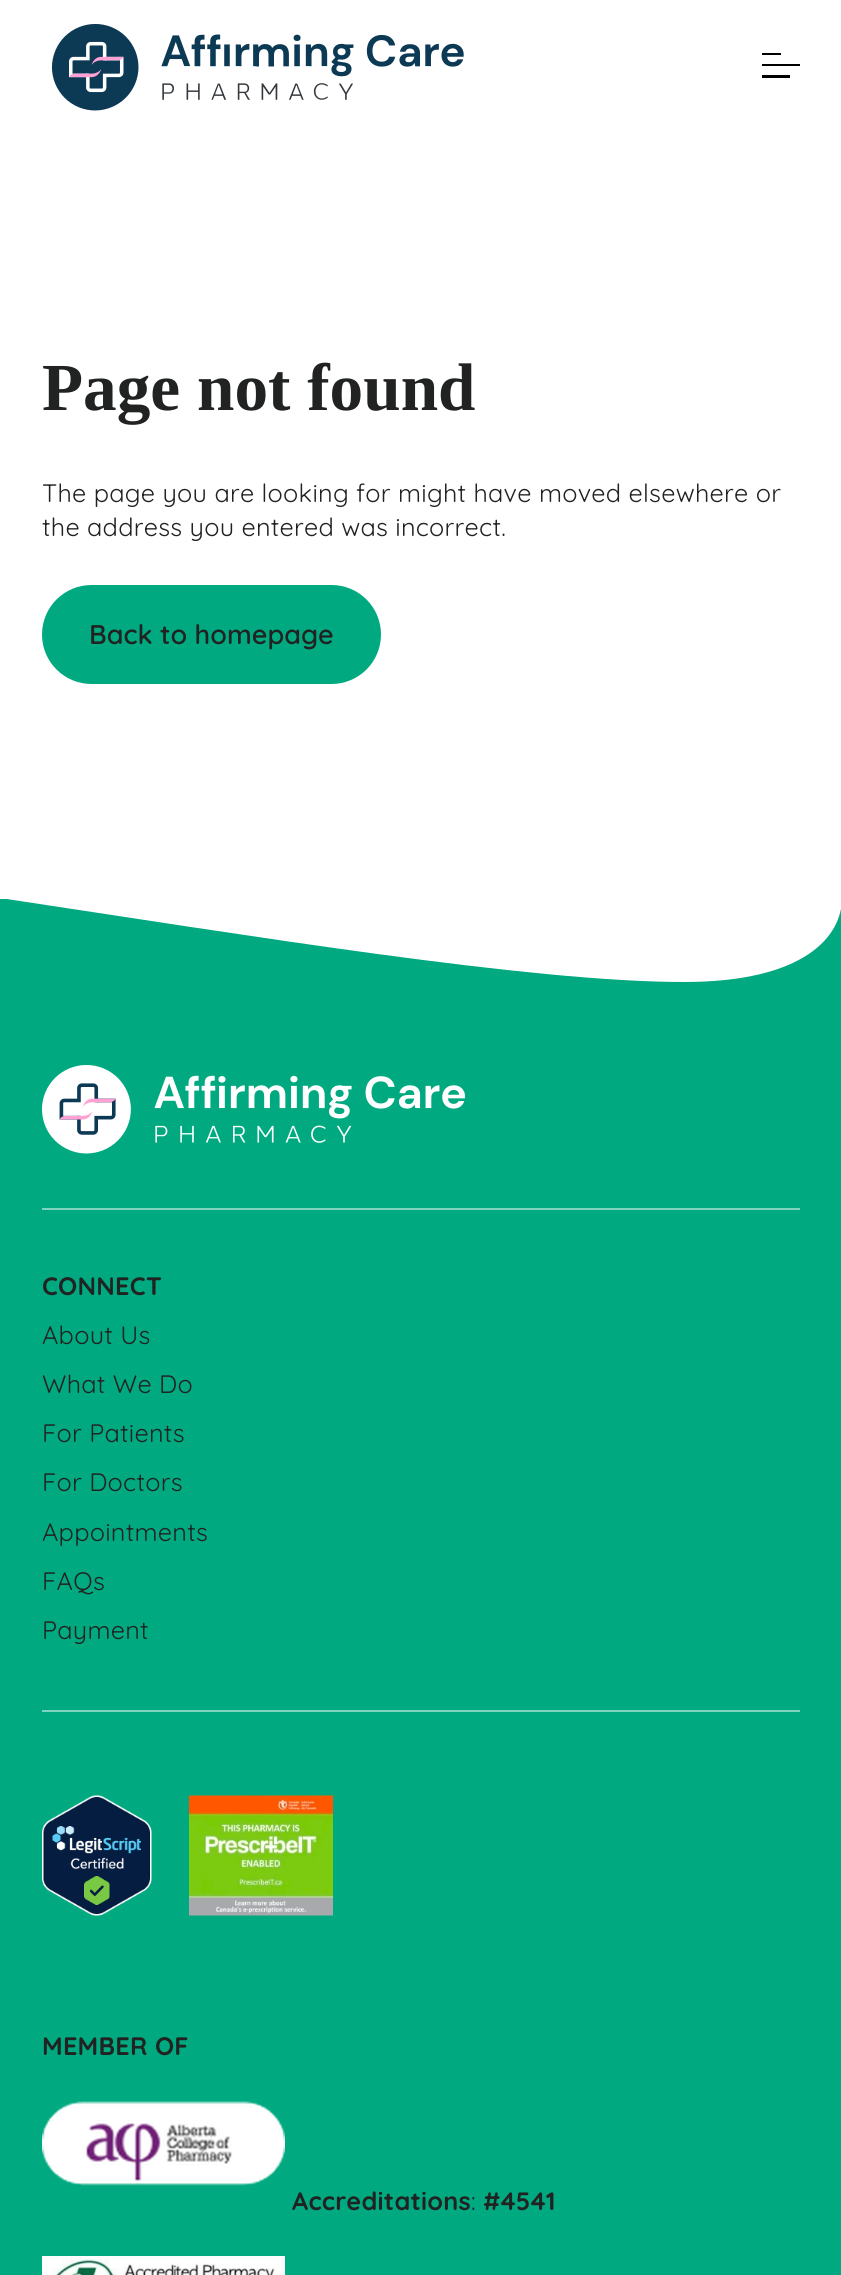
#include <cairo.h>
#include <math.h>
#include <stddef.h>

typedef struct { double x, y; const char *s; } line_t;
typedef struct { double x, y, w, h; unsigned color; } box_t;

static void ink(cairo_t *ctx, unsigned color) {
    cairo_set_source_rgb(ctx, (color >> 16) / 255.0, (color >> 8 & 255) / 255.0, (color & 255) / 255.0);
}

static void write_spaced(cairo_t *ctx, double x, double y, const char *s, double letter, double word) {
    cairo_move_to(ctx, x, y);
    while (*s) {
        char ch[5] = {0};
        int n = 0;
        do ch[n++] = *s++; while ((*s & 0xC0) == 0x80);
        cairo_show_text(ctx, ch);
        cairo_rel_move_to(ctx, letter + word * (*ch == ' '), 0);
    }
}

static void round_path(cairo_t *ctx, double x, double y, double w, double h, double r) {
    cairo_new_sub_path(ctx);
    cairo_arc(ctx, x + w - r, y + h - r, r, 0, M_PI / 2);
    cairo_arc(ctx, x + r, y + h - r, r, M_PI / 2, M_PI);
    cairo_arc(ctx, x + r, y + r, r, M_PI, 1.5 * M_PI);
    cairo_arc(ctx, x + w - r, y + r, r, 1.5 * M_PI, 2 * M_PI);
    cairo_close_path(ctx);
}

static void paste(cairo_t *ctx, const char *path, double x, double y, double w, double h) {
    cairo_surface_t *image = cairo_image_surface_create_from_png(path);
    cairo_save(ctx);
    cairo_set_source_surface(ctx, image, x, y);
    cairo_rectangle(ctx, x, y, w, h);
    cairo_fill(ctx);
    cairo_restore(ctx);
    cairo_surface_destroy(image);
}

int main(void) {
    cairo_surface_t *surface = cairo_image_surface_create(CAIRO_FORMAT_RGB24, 841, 2275);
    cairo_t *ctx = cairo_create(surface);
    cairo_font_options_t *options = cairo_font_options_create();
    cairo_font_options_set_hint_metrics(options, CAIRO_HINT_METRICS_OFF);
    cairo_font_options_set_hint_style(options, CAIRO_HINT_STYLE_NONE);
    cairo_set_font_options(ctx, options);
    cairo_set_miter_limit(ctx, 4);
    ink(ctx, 0xFFFFFF);
    cairo_paint(ctx);
    paste(ctx, "media/1.png", 51, 24, 413, 87);
    {
        static const box_t items[] = {
            {762, 53, 19, 2, 0x000000},
            {762, 64, 38, 2, 0x000000},
            {762, 75, 28, 3, 0x000000},
        };
        for (size_t i = 0; i < sizeof items / sizeof *items; i++) {
            ink(ctx, items[i].color);
            cairo_rectangle(ctx, items[i].x, items[i].y, items[i].w, items[i].h);
            cairo_fill(ctx);
        }
    }
    cairo_select_font_face(ctx, "Tinos", CAIRO_FONT_SLANT_NORMAL, CAIRO_FONT_WEIGHT_BOLD);
    cairo_set_font_size(ctx, 67.25);
    ink(ctx, 0x212322);
    cairo_move_to(ctx, 42, 410);
    cairo_show_text(ctx, "Page not found");
    cairo_select_font_face(ctx, "Quicksand Light", CAIRO_FONT_SLANT_NORMAL, CAIRO_FONT_WEIGHT_NORMAL);
    cairo_set_font_size(ctx, 25.25);
    write_spaced(ctx, 42, 502, "The page you are looking for might have moved elsewhere or", 0.25, 0);
    write_spaced(ctx, 42, 536, "the address you entered was incorrect.", 0.25, 0);
    ink(ctx, 0x00A97F);
    round_path(ctx, 42, 585, 339, 99, 49.5);
    cairo_fill(ctx);
    cairo_select_font_face(ctx, "Quicksand SemiBold", CAIRO_FONT_SLANT_NORMAL, CAIRO_FONT_WEIGHT_NORMAL);
    cairo_set_font_size(ctx, 27);
    ink(ctx, 0x212322);
    cairo_move_to(ctx, 89, 644);
    cairo_show_text(ctx, "Back to homepage");
    ink(ctx, 0x00A97F);
    cairo_rectangle(ctx, 0, 899, 841, 1376);
    cairo_fill(ctx);
    cairo_save(ctx);
    cairo_rectangle(ctx, 0, 899, 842, 84);
    cairo_clip(ctx);
    ink(ctx, 0xFFFFFF);
    cairo_new_path(ctx);
    cairo_move_to(ctx, 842, 898);
    cairo_line_to(ctx, 0, 898);
    cairo_curve_to(ctx, 246, 935, 530, 982, 684, 982);
    cairo_curve_to(ctx, 805, 982, 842, 936, 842, 898);
    cairo_close_path(ctx);
    cairo_fill(ctx);
    cairo_restore(ctx);
    paste(ctx, "media/2.png", 42, 1065, 423, 89);
    ink(ctx, 0x80D4BF);
    cairo_rectangle(ctx, 42, 1208, 758, 2);
    cairo_fill(ctx);
    cairo_rectangle(ctx, 42, 1710, 758, 2);
    cairo_fill(ctx);
    cairo_select_font_face(ctx, "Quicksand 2 Light", CAIRO_FONT_SLANT_NORMAL, CAIRO_FONT_WEIGHT_NORMAL);
    cairo_set_font_size(ctx, 25.25);
    ink(ctx, 0x212322);
    write_spaced(ctx, 42, 1295, "CONNECT", 0.25, 0);
    cairo_select_font_face(ctx, "Quicksand Light", CAIRO_FONT_SLANT_NORMAL, CAIRO_FONT_WEIGHT_NORMAL);
    {
        static const line_t items[] = {
            {42, 1344, "About Us"},
            {42, 1393, "What We Do"},
            {42, 1442, "For Patients"},
            {42, 1491, "For Doctors"},
            {42, 1541, "Appointments"},
            {42, 1590, "FAQs"},
            {42, 1639, "Payment"},
        };
        for (size_t i = 0; i < sizeof items / sizeof *items; i++) {
            write_spaced(ctx, items[i].x, items[i].y, items[i].s, 0.25, 0);
        }
    }
    paste(ctx, "media/3.png", 42, 1795, 110, 121);
    paste(ctx, "media/4.png", 189, 1795, 144, 121);
    cairo_select_font_face(ctx, "Quicksand 2 Light", CAIRO_FONT_SLANT_NORMAL, CAIRO_FONT_WEIGHT_NORMAL);
    write_spaced(ctx, 42, 2055, "MEMBER OF", 0.25, 0);
    paste(ctx, "media/5.png", 42, 2101, 243, 85);
    write_spaced(ctx, 292, 2210, "Accreditations", 0.25, 0);
    cairo_select_font_face(ctx, "Quicksand Light", CAIRO_FONT_SLANT_NORMAL, CAIRO_FONT_WEIGHT_NORMAL);
    ink(ctx, 0x1B243F);
    write_spaced(ctx, 471, 2210, ":", 0.25, 0);
    cairo_select_font_face(ctx, "Quicksand 2 Light", CAIRO_FONT_SLANT_NORMAL, CAIRO_FONT_WEIGHT_NORMAL);
    ink(ctx, 0x212322);
    write_spaced(ctx, 483, 2210, "#4541", 0.25, 0);
    paste(ctx, "media/6.png", 42, 2256, 243, 19);
    cairo_surface_write_to_png(surface, "image.png");
    cairo_font_options_destroy(options);
    cairo_destroy(ctx);
    cairo_surface_destroy(surface);
    return 0;
}
